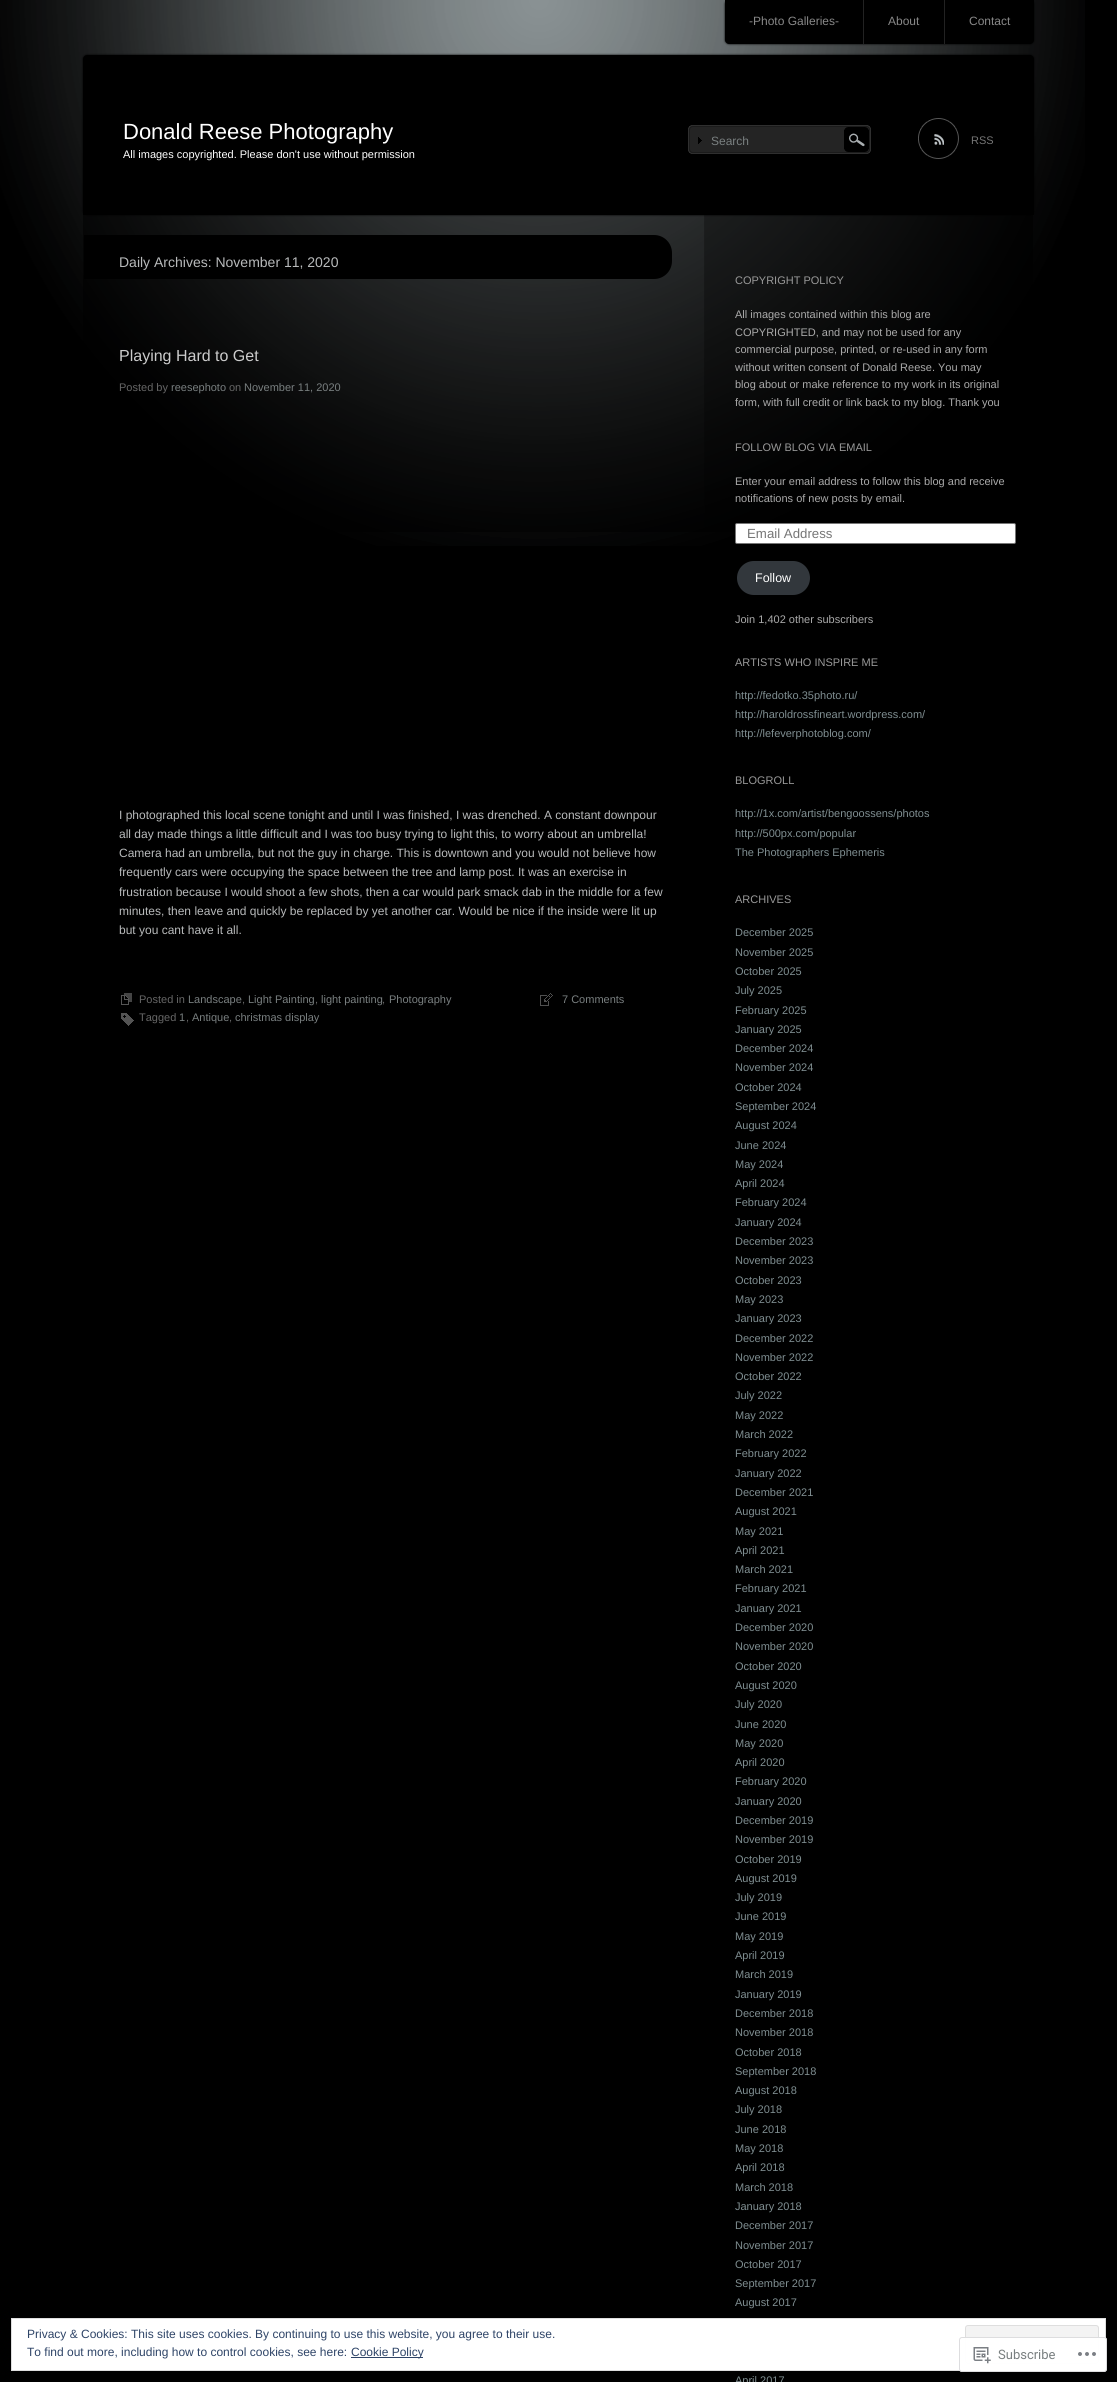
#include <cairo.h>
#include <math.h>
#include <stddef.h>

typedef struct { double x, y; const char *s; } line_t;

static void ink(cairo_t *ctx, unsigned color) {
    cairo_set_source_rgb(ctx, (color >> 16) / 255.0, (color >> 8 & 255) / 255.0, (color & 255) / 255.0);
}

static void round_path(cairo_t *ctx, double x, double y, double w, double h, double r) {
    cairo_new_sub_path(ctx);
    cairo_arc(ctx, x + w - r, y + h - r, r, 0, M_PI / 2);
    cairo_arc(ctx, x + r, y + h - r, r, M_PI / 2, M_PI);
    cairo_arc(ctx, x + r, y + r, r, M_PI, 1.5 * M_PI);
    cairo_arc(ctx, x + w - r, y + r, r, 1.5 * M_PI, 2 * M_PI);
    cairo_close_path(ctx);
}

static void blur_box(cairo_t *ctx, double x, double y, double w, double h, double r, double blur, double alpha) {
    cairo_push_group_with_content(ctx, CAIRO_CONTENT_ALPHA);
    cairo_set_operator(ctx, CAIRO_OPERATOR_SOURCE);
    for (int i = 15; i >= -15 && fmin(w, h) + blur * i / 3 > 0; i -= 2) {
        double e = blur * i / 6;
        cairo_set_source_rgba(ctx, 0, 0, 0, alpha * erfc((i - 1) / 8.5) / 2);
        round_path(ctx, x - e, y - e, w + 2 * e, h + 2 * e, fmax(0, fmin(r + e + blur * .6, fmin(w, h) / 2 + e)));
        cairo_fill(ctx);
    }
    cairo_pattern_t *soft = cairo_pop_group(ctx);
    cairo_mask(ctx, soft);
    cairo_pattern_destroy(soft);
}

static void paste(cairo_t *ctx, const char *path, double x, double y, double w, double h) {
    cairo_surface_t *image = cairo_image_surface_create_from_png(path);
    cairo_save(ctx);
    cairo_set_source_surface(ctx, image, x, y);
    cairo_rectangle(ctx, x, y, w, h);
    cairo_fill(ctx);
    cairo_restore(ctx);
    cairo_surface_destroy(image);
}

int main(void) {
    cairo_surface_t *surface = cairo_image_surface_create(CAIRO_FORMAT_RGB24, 1117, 2382);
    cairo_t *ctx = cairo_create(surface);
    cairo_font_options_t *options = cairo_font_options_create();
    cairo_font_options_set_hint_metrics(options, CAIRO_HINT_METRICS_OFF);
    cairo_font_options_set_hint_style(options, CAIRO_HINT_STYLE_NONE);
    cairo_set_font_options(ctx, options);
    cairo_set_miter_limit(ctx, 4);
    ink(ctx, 0x000000);
    cairo_paint(ctx);
    paste(ctx, "media/1.png", 0, 0, 1085, 546);
    blur_box(ctx, 725, 0, 309, 44, 4, 1, 1);
    ink(ctx, 0x000000);
    cairo_new_path(ctx);
    cairo_move_to(ctx, 725, 0);
    cairo_line_to(ctx, 1034, 0);
    cairo_line_to(ctx, 1034, 40);
    cairo_curve_to(ctx, 1034, 42, 1032, 44, 1030, 44);
    cairo_line_to(ctx, 729, 44);
    cairo_curve_to(ctx, 727, 44, 725, 42, 725, 40);
    cairo_close_path(ctx);
    cairo_fill(ctx);
    cairo_select_font_face(ctx, "Liberation Sans", CAIRO_FONT_SLANT_NORMAL, CAIRO_FONT_WEIGHT_NORMAL);
    cairo_set_font_size(ctx, 12);
    ink(ctx, 0x888888);
    cairo_move_to(ctx, 749, 25);
    cairo_show_text(ctx, "-Photo Galleries-");
    ink(ctx, 0x222222);
    cairo_rectangle(ctx, 863, 0, 1, 44);
    cairo_fill(ctx);
    ink(ctx, 0x888888);
    cairo_move_to(ctx, 888, 25);
    cairo_show_text(ctx, "About");
    ink(ctx, 0x222222);
    cairo_rectangle(ctx, 944, 0, 1, 44);
    cairo_fill(ctx);
    ink(ctx, 0x888888);
    cairo_move_to(ctx, 969, 25);
    cairo_show_text(ctx, "Contact");
    paste(ctx, "media/5.png", 83, 215, 950, 317);
    ink(ctx, 0x000000);
    blur_box(ctx, 83, 55, 951, 160, 4, 1, 1);
    ink(ctx, 0x000000);
    cairo_new_path(ctx);
    cairo_move_to(ctx, 87, 55);
    cairo_line_to(ctx, 1030, 55);
    cairo_curve_to(ctx, 1032, 55, 1034, 57, 1034, 59);
    cairo_line_to(ctx, 1034, 215);
    cairo_line_to(ctx, 83, 215);
    cairo_line_to(ctx, 83, 59);
    cairo_curve_to(ctx, 83, 57, 85, 55, 87, 55);
    cairo_close_path(ctx);
    cairo_fill(ctx);
    cairo_set_font_size(ctx, 22);
    ink(ctx, 0xFFFFFF);
    cairo_move_to(ctx, 123, 139);
    cairo_show_text(ctx, "Donald Reese Photography");
    cairo_set_font_size(ctx, 11);
    cairo_move_to(ctx, 123, 158);
    cairo_show_text(ctx, "All images copyrighted. Please don't use without permission");
    paste(ctx, "media/2.png", 688, 125, 156, 29);
    cairo_set_font_size(ctx, 12);
    ink(ctx, 0x797F80);
    cairo_move_to(ctx, 711, 145);
    cairo_show_text(ctx, "Search");
    paste(ctx, "media/3.png", 844, 125, 27, 29);
    paste(ctx, "media/4.png", 918, 118, 41, 41);
    cairo_set_font_size(ctx, 11);
    ink(ctx, 0x757575);
    cairo_move_to(ctx, 971, 144);
    cairo_show_text(ctx, "RSS");
    ink(ctx, 0x000000);
    cairo_new_path(ctx);
    cairo_move_to(ctx, 84, 235);
    cairo_line_to(ctx, 654, 235);
    cairo_curve_to(ctx, 664, 235, 672, 243, 672, 253);
    cairo_line_to(ctx, 672, 261);
    cairo_curve_to(ctx, 672, 271, 664, 279, 654, 279);
    cairo_line_to(ctx, 84, 279);
    cairo_close_path(ctx);
    cairo_fill(ctx);
    cairo_set_font_size(ctx, 14);
    ink(ctx, 0xB8BABB);
    cairo_move_to(ctx, 119, 267);
    cairo_show_text(ctx, "Daily Archives: November 11, 2020");
    cairo_set_font_size(ctx, 16);
    ink(ctx, 0xCCCCCC);
    cairo_move_to(ctx, 119, 361);
    cairo_show_text(ctx, "Playing Hard to Get");
    cairo_set_font_size(ctx, 11);
    ink(ctx, 0x666666);
    cairo_move_to(ctx, 119, 391);
    cairo_show_text(ctx, "Posted by");
    ink(ctx, 0x797F80);
    cairo_move_to(ctx, 171, 391);
    cairo_show_text(ctx, "reesephoto");
    ink(ctx, 0x666666);
    cairo_move_to(ctx, 229, 391);
    cairo_show_text(ctx, "on");
    ink(ctx, 0x797F80);
    cairo_move_to(ctx, 244, 391);
    cairo_show_text(ctx, "November 11, 2020");
    cairo_set_font_size(ctx, 12);
    ink(ctx, 0xB8BABB);
    {
        static const line_t items[] = {
            {119, 819, "I photographed this local scene tonight and until I was finished, I was drenched. A constant downpour"},
            {119, 838, "all day made things a little difficult and I was too busy trying to light this, to worry about an umbrella!"},
            {119, 857, "Camera had an umbrella, but not the guy in charge. This is downtown and you would not believe how"},
            {119, 876, "frequently cars were occupying the space between the tree and lamp post. It was an exercise in"},
            {119, 896, "frustration because I would shoot a few shots, then a car would park smack dab in the middle for a few"},
            {119, 915, "minutes, then leave and quickly be replaced by yet another car. Would be nice if the inside were lit up"},
            {119, 934, "but you cant have it all."},
        };
        for (size_t i = 0; i < sizeof items / sizeof *items; i++) {
            cairo_move_to(ctx, items[i].x, items[i].y);
            cairo_show_text(ctx, items[i].s);
        }
    }
    paste(ctx, "media/6.png", 121, 993, 11, 12);
    cairo_set_font_size(ctx, 11);
    ink(ctx, 0x666666);
    cairo_move_to(ctx, 139, 1003);
    cairo_show_text(ctx, "Posted in");
    ink(ctx, 0x797F80);
    cairo_move_to(ctx, 188, 1003);
    cairo_show_text(ctx, "Landscape");
    ink(ctx, 0x666666);
    cairo_move_to(ctx, 242, 1003);
    cairo_show_text(ctx, ",");
    ink(ctx, 0x797F80);
    cairo_move_to(ctx, 248, 1003);
    cairo_show_text(ctx, "Light Painting");
    ink(ctx, 0x666666);
    cairo_move_to(ctx, 315, 1003);
    cairo_show_text(ctx, ",");
    ink(ctx, 0x797F80);
    cairo_move_to(ctx, 321, 1003);
    cairo_show_text(ctx, "light painting");
    ink(ctx, 0x666666);
    cairo_move_to(ctx, 382, 1003);
    cairo_show_text(ctx, ",");
    ink(ctx, 0x797F80);
    cairo_move_to(ctx, 389, 1003);
    cairo_show_text(ctx, "Photography");
    paste(ctx, "media/7.png", 540, 993, 13, 13);
    cairo_move_to(ctx, 562, 1003);
    cairo_show_text(ctx, "7 Comments");
    paste(ctx, "media/8.png", 121, 1013, 13, 13);
    ink(ctx, 0x666666);
    cairo_move_to(ctx, 139, 1021);
    cairo_show_text(ctx, "Tagged");
    ink(ctx, 0x797F80);
    cairo_move_to(ctx, 179, 1021);
    cairo_show_text(ctx, "1");
    ink(ctx, 0x666666);
    cairo_move_to(ctx, 186, 1021);
    cairo_show_text(ctx, ",");
    ink(ctx, 0x797F80);
    cairo_move_to(ctx, 192, 1021);
    cairo_show_text(ctx, "Antique");
    ink(ctx, 0x666666);
    cairo_move_to(ctx, 229, 1021);
    cairo_show_text(ctx, ",");
    ink(ctx, 0x797F80);
    cairo_move_to(ctx, 235, 1021);
    cairo_show_text(ctx, "christmas display");
    ink(ctx, 0x999999);
    cairo_move_to(ctx, 735, 284);
    cairo_show_text(ctx, "COPYRIGHT POLICY");
    ink(ctx, 0xAAAAAA);
    {
        static const line_t items[] = {
            {735, 318, "All images contained within this blog are"},
            {735, 336, "COPYRIGHTED, and may not be used for any"},
            {735, 353, "commercial purpose, printed, or re-used in any form"},
            {735, 371, "without written consent of Donald Reese. You may"},
            {735, 388, "blog about or make reference to my work in its original"},
            {735, 406, "form, with full credit or link back to my blog. Thank you"},
        };
        for (size_t i = 0; i < sizeof items / sizeof *items; i++) {
            cairo_move_to(ctx, items[i].x, items[i].y);
            cairo_show_text(ctx, items[i].s);
        }
    }
    ink(ctx, 0x999999);
    cairo_move_to(ctx, 735, 451);
    cairo_show_text(ctx, "FOLLOW BLOG VIA EMAIL");
    ink(ctx, 0xAAAAAA);
    cairo_move_to(ctx, 735, 485);
    cairo_show_text(ctx, "Enter your email address to follow this blog and receive");
    cairo_move_to(ctx, 735, 502);
    cairo_show_text(ctx, "notifications of new posts by email.");
    ink(ctx, 0xFFFFFF);
    round_path(ctx, 735.5, 523.5, 280, 20, 1.5);
    cairo_fill_preserve(ctx);
    ink(ctx, 0x767676);
    cairo_set_line_width(ctx, 1);
    cairo_stroke(ctx);
    cairo_set_font_size(ctx, 13.25);
    ink(ctx, 0x757575);
    cairo_move_to(ctx, 747, 538);
    cairo_show_text(ctx, "Email Address");
    ink(ctx, 0x32373C);
    round_path(ctx, 736, 560, 75, 36, 18);
    cairo_fill_preserve(ctx);
    ink(ctx, 0x000000);
    cairo_set_line_width(ctx, 2);
    cairo_stroke(ctx);
    cairo_set_font_size(ctx, 12.5);
    ink(ctx, 0xFFFFFF);
    cairo_move_to(ctx, 755, 582);
    cairo_show_text(ctx, "Follow");
    cairo_set_font_size(ctx, 11);
    ink(ctx, 0xAAAAAA);
    cairo_move_to(ctx, 735, 623);
    cairo_show_text(ctx, "Join 1,402 other subscribers");
    ink(ctx, 0x999999);
    cairo_move_to(ctx, 735, 666);
    cairo_show_text(ctx, "ARTISTS WHO INSPIRE ME");
    ink(ctx, 0x7F8E91);
    {
        static const line_t items[] = {
            {735, 699, "http://fedotko.35photo.ru/"},
            {735, 718, "http://haroldrossfineart.wordpress.com/"},
            {735, 737, "http://lefeverphotoblog.com/"},
        };
        for (size_t i = 0; i < sizeof items / sizeof *items; i++) {
            cairo_move_to(ctx, items[i].x, items[i].y);
            cairo_show_text(ctx, items[i].s);
        }
    }
    ink(ctx, 0x999999);
    cairo_move_to(ctx, 735, 784);
    cairo_show_text(ctx, "BLOGROLL");
    ink(ctx, 0x7F8E91);
    {
        static const line_t items[] = {
            {735, 817, "http://1x.com/artist/bengoossens/photos"},
            {735, 837, "http://500px.com/popular"},
            {735, 856, "The Photographers Ephemeris"},
        };
        for (size_t i = 0; i < sizeof items / sizeof *items; i++) {
            cairo_move_to(ctx, items[i].x, items[i].y);
            cairo_show_text(ctx, items[i].s);
        }
    }
    ink(ctx, 0x999999);
    cairo_move_to(ctx, 735, 903);
    cairo_show_text(ctx, "ARCHIVES");
    ink(ctx, 0x7F8E91);
    {
        static const line_t items[] = {
            {735, 936, "December 2025"},
            {735, 956, "November 2025"},
            {735, 975, "October 2025"},
            {735, 994, "July 2025"},
            {735, 1014, "February 2025"},
            {735, 1033, "January 2025"},
            {735, 1052, "December 2024"},
            {735, 1071, "November 2024"},
            {735, 1091, "October 2024"},
            {735, 1110, "September 2024"},
            {735, 1129, "August 2024"},
            {735, 1149, "June 2024"},
            {735, 1168, "May 2024"},
            {735, 1187, "April 2024"},
            {735, 1206, "February 2024"},
            {735, 1226, "January 2024"},
            {735, 1245, "December 2023"},
            {735, 1264, "November 2023"},
            {735, 1284, "October 2023"},
            {735, 1303, "May 2023"},
            {735, 1322, "January 2023"},
            {735, 1342, "December 2022"},
            {735, 1361, "November 2022"},
            {735, 1380, "October 2022"},
            {735, 1399, "July 2022"},
            {735, 1419, "May 2022"},
            {735, 1438, "March 2022"},
            {735, 1457, "February 2022"},
            {735, 1477, "January 2022"},
            {735, 1496, "December 2021"},
            {735, 1515, "August 2021"},
            {735, 1535, "May 2021"},
            {735, 1554, "April 2021"},
            {735, 1573, "March 2021"},
            {735, 1592, "February 2021"},
            {735, 1612, "January 2021"},
            {735, 1631, "December 2020"},
            {735, 1650, "November 2020"},
            {735, 1670, "October 2020"},
            {735, 1689, "August 2020"},
            {735, 1708, "July 2020"},
            {735, 1728, "June 2020"},
            {735, 1747, "May 2020"},
            {735, 1766, "April 2020"},
            {735, 1785, "February 2020"},
            {735, 1805, "January 2020"},
            {735, 1824, "December 2019"},
            {735, 1843, "November 2019"},
            {735, 1863, "October 2019"},
            {735, 1882, "August 2019"},
            {735, 1901, "July 2019"},
            {735, 1920, "June 2019"},
            {735, 1940, "May 2019"},
            {735, 1959, "April 2019"},
            {735, 1978, "March 2019"},
            {735, 1998, "January 2019"},
            {735, 2017, "December 2018"},
            {735, 2036, "November 2018"},
            {735, 2056, "October 2018"},
            {735, 2075, "September 2018"},
            {735, 2094, "August 2018"},
            {735, 2113, "July 2018"},
            {735, 2133, "June 2018"},
            {735, 2152, "May 2018"},
            {735, 2171, "April 2018"},
            {735, 2191, "March 2018"},
            {735, 2210, "January 2018"},
            {735, 2229, "December 2017"},
            {735, 2249, "November 2017"},
            {735, 2268, "October 2017"},
            {735, 2287, "September 2017"},
            {735, 2306, "August 2017"},
            {735, 2384, "April 2017"},
        };
        for (size_t i = 0; i < sizeof items / sizeof *items; i++) {
            cairo_move_to(ctx, items[i].x, items[i].y);
            cairo_show_text(ctx, items[i].s);
        }
    }
    ink(ctx, 0xFFFFFF);
    cairo_rectangle(ctx, 11.5, 2318.5, 1094, 52);
    cairo_fill_preserve(ctx);
    ink(ctx, 0xDEDEDE);
    cairo_set_line_width(ctx, 1);
    cairo_stroke(ctx);
    cairo_set_font_size(ctx, 12);
    ink(ctx, 0x2E4467);
    cairo_move_to(ctx, 27, 2338);
    cairo_show_text(ctx, "Privacy & Cookies: This site uses cookies. By continuing to use this website, you agree to their use.");
    ink(ctx, 0xF3F3F3);
    round_path(ctx, 965.5, 2325.5, 133, 38, 2.5);
    cairo_fill_preserve(ctx);
    ink(ctx, 0xDEDEDE);
    cairo_stroke(ctx);
    ink(ctx, 0x2E4467);
    cairo_move_to(ctx, 27, 2356);
    cairo_show_text(ctx, "To find out more, including how to control cookies, see here:");
    cairo_rectangle(ctx, 351, 2357, 72, 1);
    cairo_fill(ctx);
    cairo_move_to(ctx, 351, 2356);
    cairo_show_text(ctx, "Cookie Policy");
    cairo_set_source_rgba(ctx, 1, 1, 1, 0.98);
    round_path(ctx, 959, 2337, 148, 35, 3);
    cairo_fill(ctx);
    round_path(ctx, 959.5, 2337.5, 147, 34, 2.5);
    cairo_set_source_rgba(ctx, 0.863, 0.863, 0.871, 0.98);
    cairo_stroke(ctx);
    paste(ctx, "media/9.png", 973, 2347, 18, 17);
    cairo_select_font_face(ctx, "Roboto", CAIRO_FONT_SLANT_NORMAL, CAIRO_FONT_WEIGHT_NORMAL);
    cairo_set_font_size(ctx, 13);
    ink(ctx, 0x797F80);
    cairo_move_to(ctx, 998, 2359);
    cairo_show_text(ctx, "Subscribe");
    paste(ctx, "media/10.png", 1078, 2352, 18, 4);
    cairo_surface_write_to_png(surface, "image.png");
    cairo_font_options_destroy(options);
    cairo_destroy(ctx);
    cairo_surface_destroy(surface);
    return 0;
}
